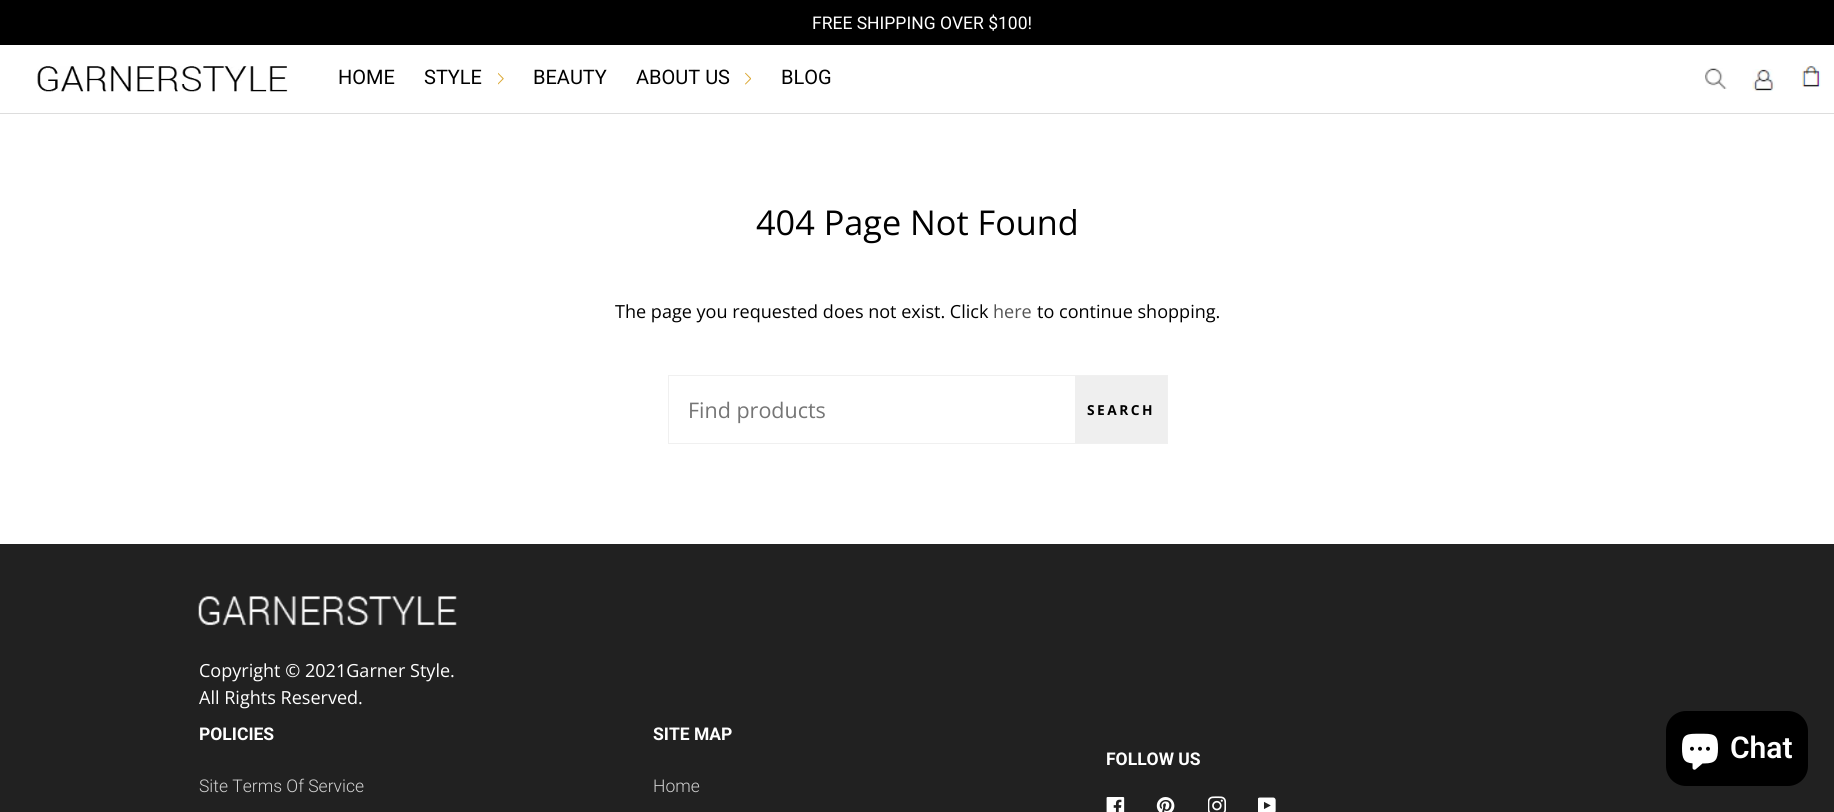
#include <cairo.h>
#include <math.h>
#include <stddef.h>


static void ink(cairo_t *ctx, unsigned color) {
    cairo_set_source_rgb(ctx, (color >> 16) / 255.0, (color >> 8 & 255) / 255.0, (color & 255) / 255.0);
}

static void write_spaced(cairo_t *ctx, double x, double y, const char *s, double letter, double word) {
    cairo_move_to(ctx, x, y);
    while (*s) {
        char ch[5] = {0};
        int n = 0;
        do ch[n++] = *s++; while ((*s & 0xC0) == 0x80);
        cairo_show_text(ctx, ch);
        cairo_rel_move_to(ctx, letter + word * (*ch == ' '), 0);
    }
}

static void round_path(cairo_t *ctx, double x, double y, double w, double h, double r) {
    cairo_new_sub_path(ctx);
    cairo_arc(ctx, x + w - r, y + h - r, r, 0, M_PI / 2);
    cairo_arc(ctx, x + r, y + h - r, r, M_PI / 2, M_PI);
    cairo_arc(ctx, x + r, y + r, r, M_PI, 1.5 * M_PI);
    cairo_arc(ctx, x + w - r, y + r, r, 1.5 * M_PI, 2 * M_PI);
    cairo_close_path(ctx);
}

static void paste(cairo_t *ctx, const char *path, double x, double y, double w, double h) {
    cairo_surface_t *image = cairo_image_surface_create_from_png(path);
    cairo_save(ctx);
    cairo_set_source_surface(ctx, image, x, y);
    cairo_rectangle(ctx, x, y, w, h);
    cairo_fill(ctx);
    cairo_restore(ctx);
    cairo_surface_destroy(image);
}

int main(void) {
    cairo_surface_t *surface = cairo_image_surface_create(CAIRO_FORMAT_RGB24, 1834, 812);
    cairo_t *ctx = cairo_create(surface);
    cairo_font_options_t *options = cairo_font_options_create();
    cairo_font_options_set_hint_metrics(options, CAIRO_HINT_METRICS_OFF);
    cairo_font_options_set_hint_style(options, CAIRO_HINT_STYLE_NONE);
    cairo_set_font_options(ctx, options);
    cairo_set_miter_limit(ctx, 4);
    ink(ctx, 0xFFFFFF);
    cairo_paint(ctx);
    ink(ctx, 0x000000);
    cairo_rectangle(ctx, 0, 0, 1834, 45);
    cairo_fill(ctx);
    cairo_select_font_face(ctx, "Roboto", CAIRO_FONT_SLANT_NORMAL, CAIRO_FONT_WEIGHT_NORMAL);
    cairo_set_font_size(ctx, 17.5);
    ink(ctx, 0xFFFFFF);
    cairo_move_to(ctx, 812, 29);
    cairo_show_text(ctx, "FREE SHIPPING OVER $100!");
    ink(ctx, 0xDDDDDD);
    cairo_rectangle(ctx, 0, 113, 1834, 1);
    cairo_fill(ctx);
    paste(ctx, "media/1.png", 37, 66, 251, 26);
    cairo_set_font_size(ctx, 20);
    ink(ctx, 0x000000);
    cairo_move_to(ctx, 338, 84);
    cairo_show_text(ctx, "HOME");
    cairo_move_to(ctx, 424, 84);
    cairo_show_text(ctx, "STYLE");
    paste(ctx, "media/2.png", 498, 72, 6, 13);
    cairo_move_to(ctx, 533, 84);
    cairo_show_text(ctx, "BEAUTY");
    cairo_move_to(ctx, 636, 84);
    cairo_show_text(ctx, "ABOUT US");
    paste(ctx, "media/3.png", 745, 72, 6, 13);
    cairo_move_to(ctx, 781, 84);
    cairo_show_text(ctx, "BLOG");
    paste(ctx, "media/4.png", 1705, 68, 22, 21);
    paste(ctx, "media/5.png", 1752, 69, 23, 23);
    paste(ctx, "media/6.png", 1802, 66, 19, 21);
    cairo_select_font_face(ctx, "Open Sans", CAIRO_FONT_SLANT_NORMAL, CAIRO_FONT_WEIGHT_NORMAL);
    cairo_set_font_size(ctx, 34.25);
    cairo_move_to(ctx, 756, 235);
    cairo_show_text(ctx, "404 Page Not Found");
    cairo_set_font_size(ctx, 18.05);
    cairo_move_to(ctx, 615, 318);
    cairo_show_text(ctx, "The page you requested does not exist. Click");
    ink(ctx, 0x545454);
    cairo_move_to(ctx, 993, 318);
    cairo_show_text(ctx, "here");
    ink(ctx, 0x000000);
    cairo_move_to(ctx, 1037, 318);
    cairo_show_text(ctx, "to continue shopping.");
    cairo_rectangle(ctx, 668.5, 375.5, 499, 68);
    ink(ctx, 0xF0F0F0);
    cairo_set_line_width(ctx, 1);
    cairo_stroke(ctx);
    cairo_set_font_size(ctx, 21.5);
    ink(ctx, 0x757575);
    cairo_move_to(ctx, 688, 418);
    cairo_show_text(ctx, "Find products");
    ink(ctx, 0xEFEFEF);
    cairo_rectangle(ctx, 1075, 376, 92, 67);
    cairo_fill(ctx);
    cairo_select_font_face(ctx, "Open Sans", CAIRO_FONT_SLANT_NORMAL, CAIRO_FONT_WEIGHT_BOLD);
    cairo_set_font_size(ctx, 13.75);
    ink(ctx, 0x000000);
    write_spaced(ctx, 1087, 415, "SEARCH", 2.5, 0);
    ink(ctx, 0x212121);
    cairo_rectangle(ctx, 0, 544, 1834, 268);
    cairo_fill(ctx);
    paste(ctx, "media/7.png", 198, 596, 259, 30);
    cairo_select_font_face(ctx, "Open Sans", CAIRO_FONT_SLANT_NORMAL, CAIRO_FONT_WEIGHT_NORMAL);
    cairo_set_font_size(ctx, 18.05);
    ink(ctx, 0xFFFFFF);
    cairo_move_to(ctx, 199, 677);
    cairo_show_text(ctx, "Copyright © 2021Garner Style.");
    cairo_move_to(ctx, 199, 704);
    cairo_show_text(ctx, "All Rights Reserved.");
    cairo_select_font_face(ctx, "Roboto", CAIRO_FONT_SLANT_NORMAL, CAIRO_FONT_WEIGHT_BOLD);
    cairo_set_font_size(ctx, 17.5);
    cairo_move_to(ctx, 199, 740);
    cairo_show_text(ctx, "POLICIES");
    cairo_select_font_face(ctx, "Roboto Light", CAIRO_FONT_SLANT_NORMAL, CAIRO_FONT_WEIGHT_NORMAL);
    ink(ctx, 0xD1D1D1);
    cairo_move_to(ctx, 199, 792);
    cairo_show_text(ctx, "Site Terms Of Service");
    cairo_select_font_face(ctx, "Roboto", CAIRO_FONT_SLANT_NORMAL, CAIRO_FONT_WEIGHT_BOLD);
    ink(ctx, 0xFFFFFF);
    cairo_move_to(ctx, 653, 740);
    cairo_show_text(ctx, "SITE MAP");
    cairo_select_font_face(ctx, "Roboto Light", CAIRO_FONT_SLANT_NORMAL, CAIRO_FONT_WEIGHT_NORMAL);
    ink(ctx, 0xD1D1D1);
    cairo_move_to(ctx, 653, 792);
    cairo_show_text(ctx, "Home");
    cairo_select_font_face(ctx, "Roboto", CAIRO_FONT_SLANT_NORMAL, CAIRO_FONT_WEIGHT_BOLD);
    ink(ctx, 0xFFFFFF);
    cairo_move_to(ctx, 1106, 765);
    cairo_show_text(ctx, "FOLLOW US");
    paste(ctx, "media/8.png", 1106, 797, 19, 15);
    paste(ctx, "media/9.png", 1156, 797, 19, 15);
    paste(ctx, "media/10.png", 1208, 796, 18, 16);
    paste(ctx, "media/11.png", 1258, 797, 18, 15);
    ink(ctx, 0x000000);
    round_path(ctx, 1666, 711, 142, 75, 20);
    cairo_fill(ctx);
    paste(ctx, "media/12.png", 1682, 733, 36, 37);
    cairo_select_font_face(ctx, "Roboto SemiBold", CAIRO_FONT_SLANT_NORMAL, CAIRO_FONT_WEIGHT_NORMAL);
    cairo_set_font_size(ctx, 30);
    ink(ctx, 0xFFFFFF);
    cairo_move_to(ctx, 1730, 758);
    cairo_show_text(ctx, "Chat");
    cairo_surface_write_to_png(surface, "image.png");
    cairo_font_options_destroy(options);
    cairo_destroy(ctx);
    cairo_surface_destroy(surface);
    return 0;
}
